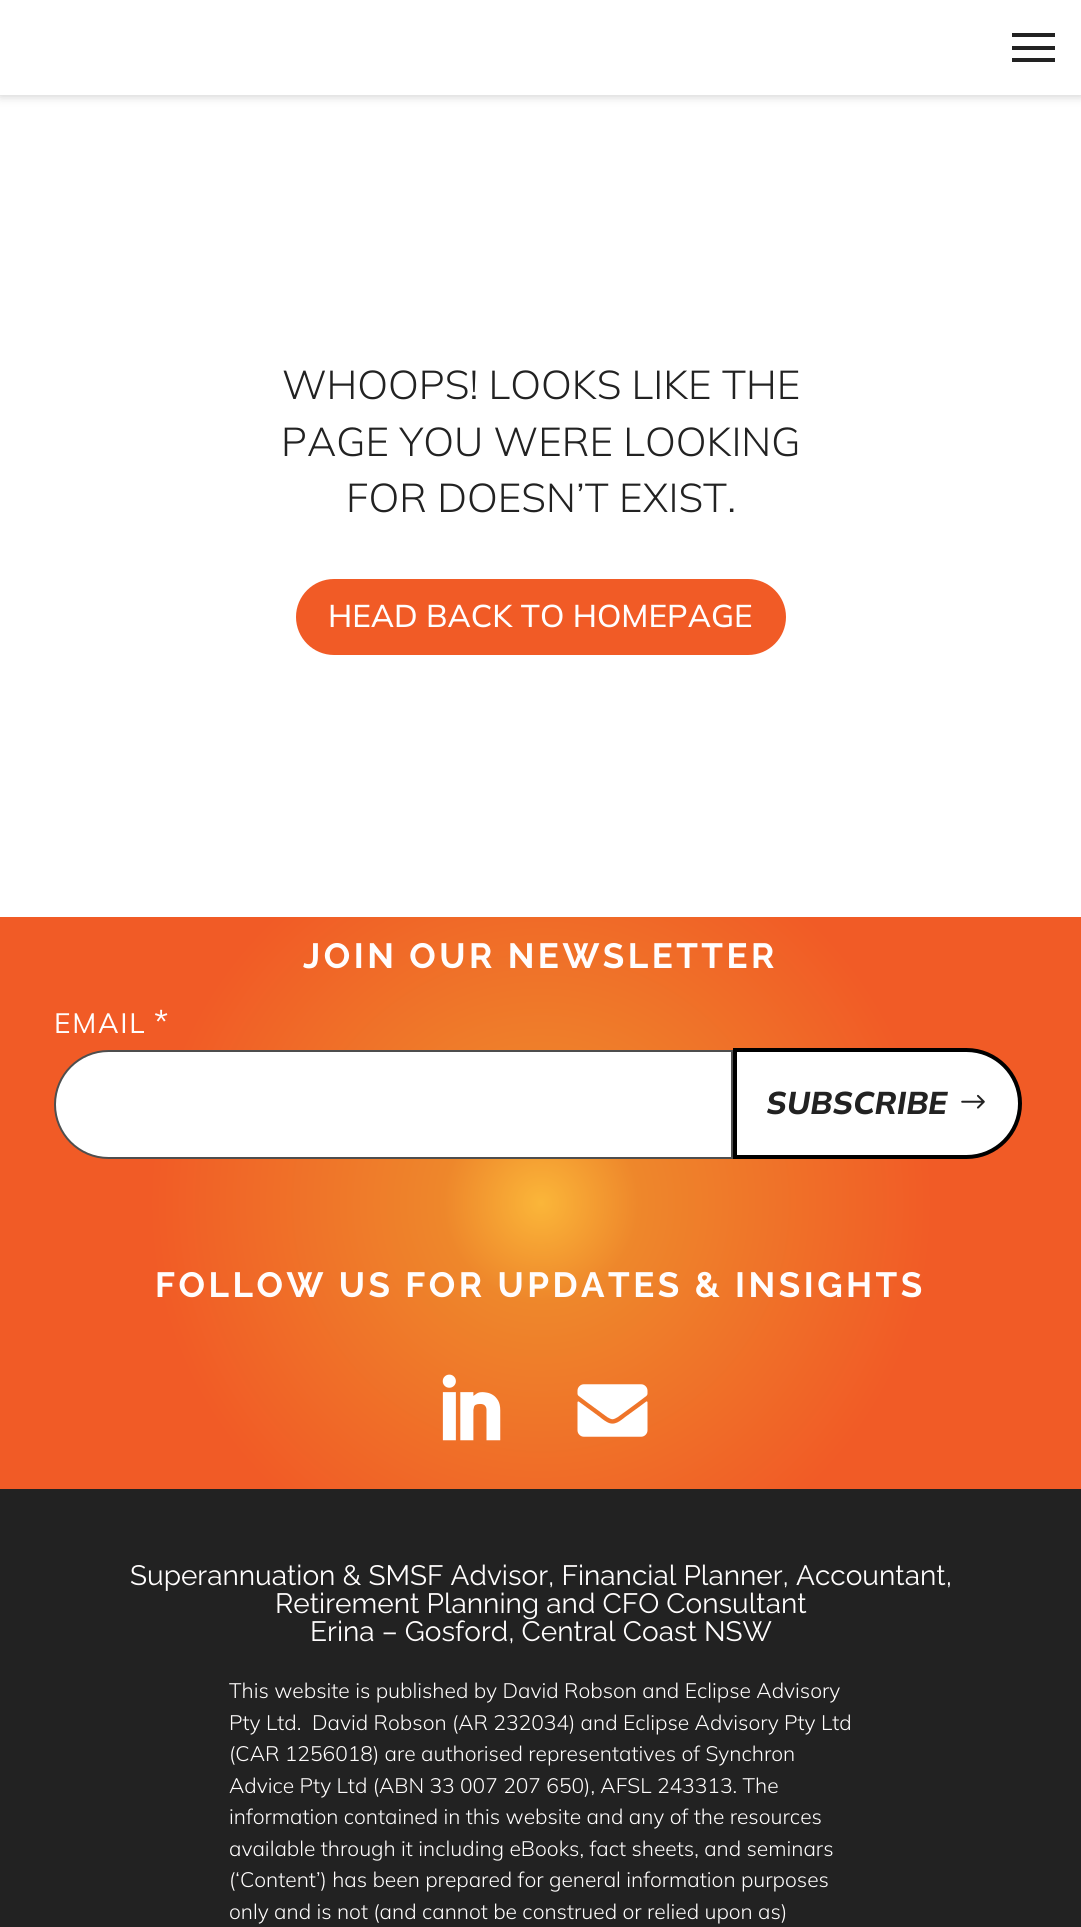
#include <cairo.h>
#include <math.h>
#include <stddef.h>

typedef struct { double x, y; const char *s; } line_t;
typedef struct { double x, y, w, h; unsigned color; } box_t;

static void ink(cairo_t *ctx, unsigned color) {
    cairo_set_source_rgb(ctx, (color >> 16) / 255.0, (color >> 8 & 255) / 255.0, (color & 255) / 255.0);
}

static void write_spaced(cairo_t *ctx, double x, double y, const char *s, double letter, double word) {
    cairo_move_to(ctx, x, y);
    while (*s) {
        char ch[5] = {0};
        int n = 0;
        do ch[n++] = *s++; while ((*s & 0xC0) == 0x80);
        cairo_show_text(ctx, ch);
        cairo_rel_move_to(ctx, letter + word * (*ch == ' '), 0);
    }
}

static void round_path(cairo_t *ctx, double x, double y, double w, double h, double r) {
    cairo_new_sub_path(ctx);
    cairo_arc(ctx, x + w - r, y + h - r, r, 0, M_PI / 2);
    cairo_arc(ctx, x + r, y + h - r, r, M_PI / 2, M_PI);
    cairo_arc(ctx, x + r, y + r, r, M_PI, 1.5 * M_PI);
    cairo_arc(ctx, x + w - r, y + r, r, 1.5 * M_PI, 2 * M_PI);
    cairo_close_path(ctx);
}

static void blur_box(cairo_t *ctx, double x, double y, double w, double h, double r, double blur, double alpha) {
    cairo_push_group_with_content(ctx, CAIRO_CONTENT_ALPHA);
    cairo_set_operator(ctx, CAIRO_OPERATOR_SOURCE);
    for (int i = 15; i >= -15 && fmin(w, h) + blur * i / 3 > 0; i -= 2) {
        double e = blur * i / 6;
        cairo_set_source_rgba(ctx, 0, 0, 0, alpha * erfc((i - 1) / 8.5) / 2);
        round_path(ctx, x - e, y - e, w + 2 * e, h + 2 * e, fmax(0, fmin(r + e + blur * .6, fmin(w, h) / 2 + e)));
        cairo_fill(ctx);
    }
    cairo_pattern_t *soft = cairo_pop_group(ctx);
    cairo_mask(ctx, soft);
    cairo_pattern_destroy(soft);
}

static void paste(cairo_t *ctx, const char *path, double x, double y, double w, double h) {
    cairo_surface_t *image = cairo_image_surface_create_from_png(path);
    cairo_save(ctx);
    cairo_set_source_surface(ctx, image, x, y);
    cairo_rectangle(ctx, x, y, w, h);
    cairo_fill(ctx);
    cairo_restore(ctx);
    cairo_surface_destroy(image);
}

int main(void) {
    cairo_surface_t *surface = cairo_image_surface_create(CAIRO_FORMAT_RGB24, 1081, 1927);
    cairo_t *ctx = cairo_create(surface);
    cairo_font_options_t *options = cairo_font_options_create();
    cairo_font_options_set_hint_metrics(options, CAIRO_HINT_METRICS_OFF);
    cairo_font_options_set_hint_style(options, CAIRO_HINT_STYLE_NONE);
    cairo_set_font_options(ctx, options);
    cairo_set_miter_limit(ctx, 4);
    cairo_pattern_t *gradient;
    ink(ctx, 0xFFFFFF);
    cairo_paint(ctx);
    ink(ctx, 0x000000);
    blur_box(ctx, 0, 2, 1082, 94, 0, 5, 0.2);
    {
        static const box_t items[] = {
            {0, 0, 1081, 95, 0xFFFFFF},
            {1012, 33, 43, 4, 0x222222},
            {1012, 46, 43, 4, 0x222222},
            {1012, 58, 43, 4, 0x222222},
        };
        for (size_t i = 0; i < sizeof items / sizeof *items; i++) {
            ink(ctx, items[i].color);
            cairo_rectangle(ctx, items[i].x, items[i].y, items[i].w, items[i].h);
            cairo_fill(ctx);
        }
    }
    cairo_select_font_face(ctx, "Mulish Light", CAIRO_FONT_SLANT_NORMAL, CAIRO_FONT_WEIGHT_NORMAL);
    cairo_set_font_size(ctx, 40.25);
    {
        static const line_t items[] = {
            {282, 399, "WHOOPS! LOOKS LIKE THE"},
            {281, 456, "PAGE YOU WERE LOOKING"},
            {346, 512, "FOR DOESN’T EXIST."},
        };
        for (size_t i = 0; i < sizeof items / sizeof *items; i++) {
            cairo_move_to(ctx, items[i].x, items[i].y);
            cairo_show_text(ctx, items[i].s);
        }
    }
    ink(ctx, 0xF15B26);
    round_path(ctx, 297, 580, 488, 74, 37);
    cairo_fill_preserve(ctx);
    cairo_stroke(ctx);
    cairo_select_font_face(ctx, "Mulish Medium", CAIRO_FONT_SLANT_NORMAL, CAIRO_FONT_WEIGHT_NORMAL);
    cairo_set_font_size(ctx, 31.5);
    ink(ctx, 0xFFFDFD);
    cairo_move_to(ctx, 328, 627);
    cairo_show_text(ctx, "HEAD BACK TO HOMEPAGE");
    gradient = cairo_pattern_create_radial(541, 1203, 0, 541, 1203, 612);
    cairo_pattern_add_color_stop_rgba(gradient, 0, 0.984, 0.714, 0.224, 1);
    cairo_pattern_add_color_stop_rgba(gradient, 0.16, 0.933, 0.529, 0.169, 1);
    cairo_pattern_add_color_stop_rgba(gradient, 0.64, 0.945, 0.357, 0.149, 1);
    cairo_set_source(ctx, gradient);
    cairo_pattern_destroy(gradient);
    cairo_rectangle(ctx, 0, 917, 1081, 572);
    cairo_fill(ctx);
    cairo_select_font_face(ctx, "Raleway", CAIRO_FONT_SLANT_NORMAL, CAIRO_FONT_WEIGHT_BOLD);
    cairo_set_font_size(ctx, 35);
    ink(ctx, 0xFFFDFD);
    write_spaced(ctx, 303, 968, "JOIN OUR NEWSLETTER", 3.5, 0);
    cairo_select_font_face(ctx, "Mulish", CAIRO_FONT_SLANT_NORMAL, CAIRO_FONT_WEIGHT_NORMAL);
    cairo_set_font_size(ctx, 28);
    write_spaced(ctx, 54, 1033, "EMAIL", 1.75, 0);
    cairo_set_font_size(ctx, 31.5);
    write_spaced(ctx, 154, 1033, "*", 1.75, 0);
    ink(ctx, 0xFFFFFF);
    cairo_new_path(ctx);
    cairo_move_to(ctx, 108.5, 1051);
    cairo_line_to(ctx, 732, 1051);
    cairo_line_to(ctx, 732, 1158);
    cairo_line_to(ctx, 108.5, 1158);
    cairo_curve_to(ctx, 79, 1158, 55, 1134, 55, 1104.5);
    cairo_curve_to(ctx, 55, 1075, 79, 1051, 108.5, 1051);
    cairo_close_path(ctx);
    cairo_fill_preserve(ctx);
    ink(ctx, 0x4E4E4E);
    cairo_stroke(ctx);
    ink(ctx, 0xFFFFFF);
    cairo_new_path(ctx);
    cairo_move_to(ctx, 735, 1050);
    cairo_line_to(ctx, 966.5, 1050);
    cairo_curve_to(ctx, 996, 1050, 1020, 1074, 1020, 1103.5);
    cairo_curve_to(ctx, 1020, 1133, 996, 1157, 966.5, 1157);
    cairo_line_to(ctx, 735, 1157);
    cairo_close_path(ctx);
    cairo_fill_preserve(ctx);
    ink(ctx, 0x000000);
    cairo_set_line_width(ctx, 4);
    cairo_stroke(ctx);
    cairo_select_font_face(ctx, "Mulish ExtraBold", CAIRO_FONT_SLANT_ITALIC, CAIRO_FONT_WEIGHT_NORMAL);
    ink(ctx, 0x222222);
    cairo_move_to(ctx, 766, 1114);
    cairo_show_text(ctx, "SUBSCRIBE");
    paste(ctx, "media/1.png", 961, 1094, 24, 15);
    cairo_select_font_face(ctx, "Raleway", CAIRO_FONT_SLANT_NORMAL, CAIRO_FONT_WEIGHT_BOLD);
    cairo_set_font_size(ctx, 35);
    ink(ctx, 0xFFFDFD);
    write_spaced(ctx, 155, 1297, "FOLLOW US FOR UPDATES & INSIGHTS", 3.5, 0);
    paste(ctx, "media/2.png", 442, 1374, 59, 67);
    paste(ctx, "media/3.png", 577, 1384, 71, 53);
    ink(ctx, 0x222222);
    cairo_rectangle(ctx, 0, 1489, 1081, 438);
    cairo_fill(ctx);
    cairo_select_font_face(ctx, "Raleway", CAIRO_FONT_SLANT_NORMAL, CAIRO_FONT_WEIGHT_NORMAL);
    cairo_set_font_size(ctx, 28);
    ink(ctx, 0xFFFDFD);
    {
        static const line_t items[] = {
            {130, 1585, "Superannuation & SMSF Advisor, Financial Planner, Accountant,"},
            {275, 1613, "Retirement Planning and CFO Consultant"},
            {310, 1641, "Erina – Gosford, Central Coast NSW"},
        };
        for (size_t i = 0; i < sizeof items / sizeof *items; i++) {
            cairo_move_to(ctx, items[i].x, items[i].y);
            cairo_show_text(ctx, items[i].s);
        }
    }
    cairo_select_font_face(ctx, "Mulish Light", CAIRO_FONT_SLANT_NORMAL, CAIRO_FONT_WEIGHT_NORMAL);
    cairo_set_font_size(ctx, 21);
    {
        static const line_t items[] = {
            {229, 1698, "This website is published by David Robson and Eclipse Advisory"},
            {229, 1730, "Pty Ltd.  David Robson (AR 232034) and Eclipse Advisory Pty Ltd"},
            {229, 1761, "(CAR 1256018) are authorised representatives of Synchron"},
            {229, 1793, "Advice Pty Ltd (ABN 33 007 207 650), AFSL 243313. The"},
            {229, 1824, "information contained in this website and any of the resources"},
            {229, 1856, "available through it including eBooks, fact sheets, and seminars"},
            {229, 1887, "(‘Content’) has been prepared for general information purposes"},
            {229, 1919, "only and is not (and cannot be construed or relied upon as)"},
        };
        for (size_t i = 0; i < sizeof items / sizeof *items; i++) {
            cairo_move_to(ctx, items[i].x, items[i].y);
            cairo_show_text(ctx, items[i].s);
        }
    }
    cairo_surface_write_to_png(surface, "image.png");
    cairo_font_options_destroy(options);
    cairo_destroy(ctx);
    cairo_surface_destroy(surface);
    return 0;
}
